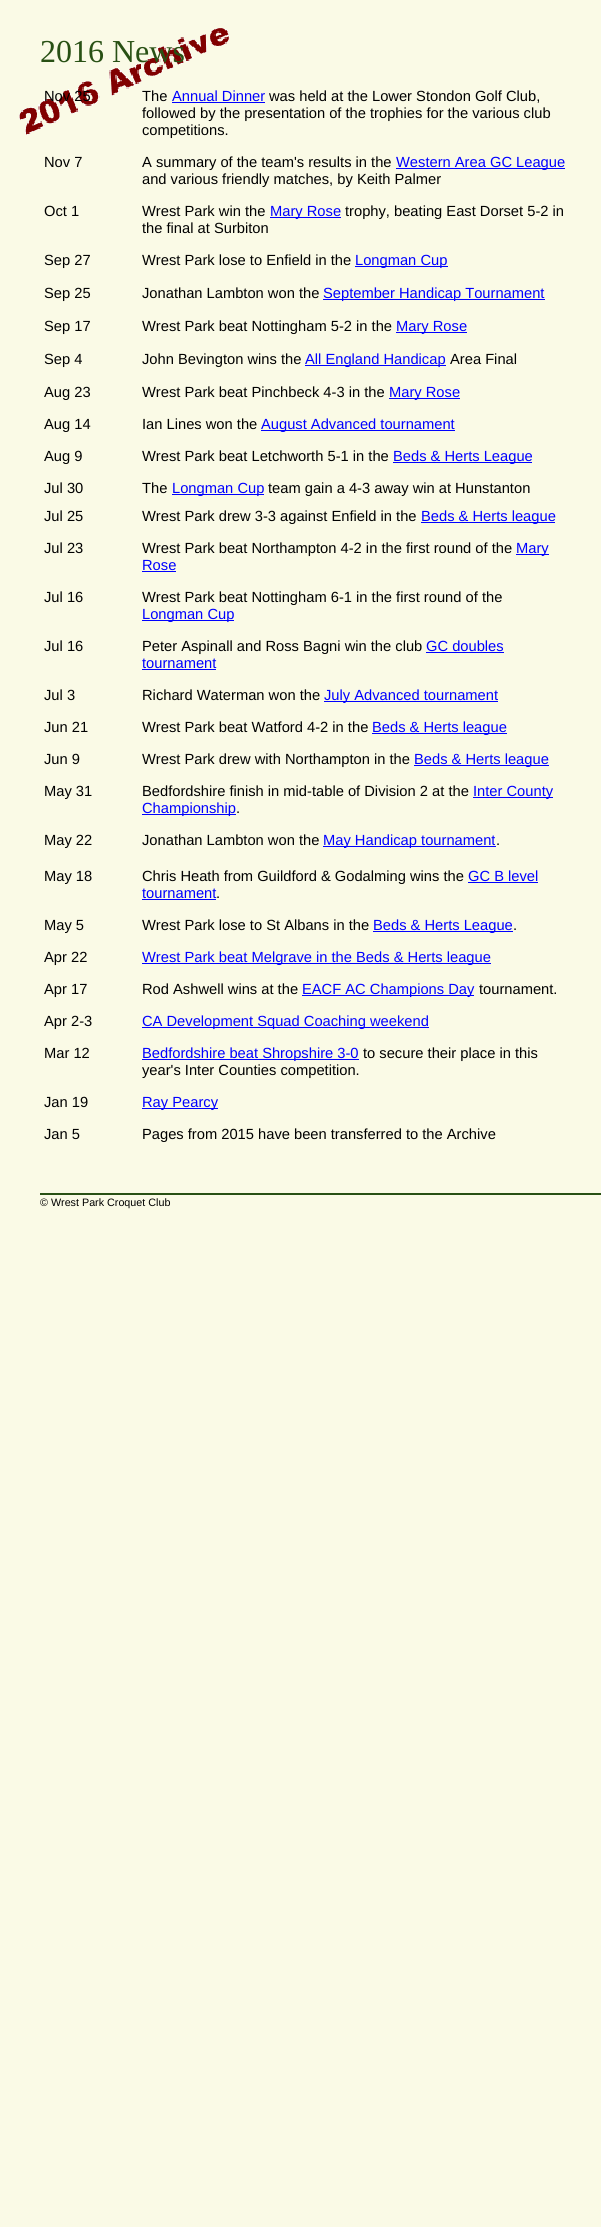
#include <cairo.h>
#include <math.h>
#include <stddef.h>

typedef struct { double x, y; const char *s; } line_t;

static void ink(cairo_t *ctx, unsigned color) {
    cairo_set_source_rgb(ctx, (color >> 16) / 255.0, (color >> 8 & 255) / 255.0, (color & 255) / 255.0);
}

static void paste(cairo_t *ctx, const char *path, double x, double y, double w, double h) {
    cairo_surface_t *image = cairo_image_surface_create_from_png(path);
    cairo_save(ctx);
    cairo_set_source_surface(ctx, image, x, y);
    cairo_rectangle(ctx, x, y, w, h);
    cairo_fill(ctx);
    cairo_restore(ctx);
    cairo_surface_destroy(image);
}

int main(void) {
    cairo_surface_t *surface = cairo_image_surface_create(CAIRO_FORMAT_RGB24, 601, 2227);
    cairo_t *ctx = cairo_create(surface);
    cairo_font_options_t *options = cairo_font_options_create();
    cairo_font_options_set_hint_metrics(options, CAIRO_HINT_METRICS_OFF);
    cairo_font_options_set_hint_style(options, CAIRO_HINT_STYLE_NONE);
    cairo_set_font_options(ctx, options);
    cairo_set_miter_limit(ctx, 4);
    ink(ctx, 0xFAFAE6);
    cairo_paint(ctx);
    paste(ctx, "media/1.png", 19, 28, 211, 107);
    cairo_select_font_face(ctx, "Liberation Serif", CAIRO_FONT_SLANT_NORMAL, CAIRO_FONT_WEIGHT_NORMAL);
    cairo_set_font_size(ctx, 32);
    ink(ctx, 0x285014);
    cairo_move_to(ctx, 40, 62);
    cairo_show_text(ctx, "2016 News");
    cairo_select_font_face(ctx, "Liberation Sans", CAIRO_FONT_SLANT_NORMAL, CAIRO_FONT_WEIGHT_NORMAL);
    cairo_set_font_size(ctx, 14.7);
    ink(ctx, 0x000000);
    cairo_move_to(ctx, 44, 101);
    cairo_show_text(ctx, "Nov 25");
    cairo_move_to(ctx, 142, 101);
    cairo_show_text(ctx, "The");
    ink(ctx, 0x0000FF);
    cairo_move_to(ctx, 172, 101);
    cairo_show_text(ctx, "Annual Dinner");
    cairo_rectangle(ctx, 172, 102, 93, 1);
    cairo_fill(ctx);
    ink(ctx, 0x000000);
    {
        static const line_t items[] = {
            {269, 101, "was held at the Lower Stondon Golf Club,"},
            {142, 118, "followed by the presentation of the trophies for the various club"},
            {142, 135, "competitions."},
            {44, 167, "Nov 7"},
            {142, 167, "A summary of the team's results in the"},
        };
        for (size_t i = 0; i < sizeof items / sizeof *items; i++) {
            cairo_move_to(ctx, items[i].x, items[i].y);
            cairo_show_text(ctx, items[i].s);
        }
    }
    ink(ctx, 0x0000FF);
    cairo_rectangle(ctx, 396, 168, 169, 1);
    cairo_fill(ctx);
    cairo_move_to(ctx, 396, 167);
    cairo_show_text(ctx, "Western Area GC League");
    ink(ctx, 0x000000);
    {
        static const line_t items[] = {
            {142, 184, "and various friendly matches, by Keith Palmer"},
            {44, 216, "Oct 1"},
            {142, 216, "Wrest Park win the"},
        };
        for (size_t i = 0; i < sizeof items / sizeof *items; i++) {
            cairo_move_to(ctx, items[i].x, items[i].y);
            cairo_show_text(ctx, items[i].s);
        }
    }
    ink(ctx, 0x0000FF);
    cairo_rectangle(ctx, 270, 217, 71, 1);
    cairo_fill(ctx);
    cairo_move_to(ctx, 270, 216);
    cairo_show_text(ctx, "Mary Rose");
    ink(ctx, 0x000000);
    {
        static const line_t items[] = {
            {345, 216, "trophy, beating East Dorset 5-2 in"},
            {142, 233, "the final at Surbiton"},
            {44, 265, "Sep 27"},
            {142, 265, "Wrest Park lose to Enfield in the"},
        };
        for (size_t i = 0; i < sizeof items / sizeof *items; i++) {
            cairo_move_to(ctx, items[i].x, items[i].y);
            cairo_show_text(ctx, items[i].s);
        }
    }
    ink(ctx, 0x0000FF);
    cairo_rectangle(ctx, 355, 266, 93, 1);
    cairo_fill(ctx);
    cairo_move_to(ctx, 355, 265);
    cairo_show_text(ctx, "Longman Cup");
    ink(ctx, 0x000000);
    cairo_move_to(ctx, 44, 298);
    cairo_show_text(ctx, "Sep 25");
    cairo_move_to(ctx, 142, 298);
    cairo_show_text(ctx, "Jonathan Lambton won the");
    ink(ctx, 0x0000FF);
    cairo_rectangle(ctx, 323, 299, 222, 1);
    cairo_fill(ctx);
    cairo_move_to(ctx, 323, 298);
    cairo_show_text(ctx, "September Handicap Tournament");
    ink(ctx, 0x000000);
    cairo_move_to(ctx, 44, 331);
    cairo_show_text(ctx, "Sep 17");
    cairo_move_to(ctx, 142, 331);
    cairo_show_text(ctx, "Wrest Park beat Nottingham 5-2 in the");
    ink(ctx, 0x0000FF);
    cairo_rectangle(ctx, 396, 332, 71, 1);
    cairo_fill(ctx);
    cairo_move_to(ctx, 396, 331);
    cairo_show_text(ctx, "Mary Rose");
    ink(ctx, 0x000000);
    cairo_move_to(ctx, 44, 364);
    cairo_show_text(ctx, "Sep 4");
    cairo_move_to(ctx, 142, 364);
    cairo_show_text(ctx, "John Bevington wins the");
    ink(ctx, 0x0000FF);
    cairo_rectangle(ctx, 305, 365, 141, 1);
    cairo_fill(ctx);
    cairo_move_to(ctx, 305, 364);
    cairo_show_text(ctx, "All England Handicap");
    ink(ctx, 0x000000);
    {
        static const line_t items[] = {
            {450, 364, "Area Final"},
            {44, 397, "Aug 23"},
            {142, 397, "Wrest Park beat Pinchbeck 4-3 in the"},
        };
        for (size_t i = 0; i < sizeof items / sizeof *items; i++) {
            cairo_move_to(ctx, items[i].x, items[i].y);
            cairo_show_text(ctx, items[i].s);
        }
    }
    ink(ctx, 0x0000FF);
    cairo_rectangle(ctx, 389, 398, 71, 1);
    cairo_fill(ctx);
    cairo_move_to(ctx, 389, 397);
    cairo_show_text(ctx, "Mary Rose");
    ink(ctx, 0x000000);
    cairo_move_to(ctx, 44, 429);
    cairo_show_text(ctx, "Aug 14");
    cairo_move_to(ctx, 142, 429);
    cairo_show_text(ctx, "Ian Lines won the");
    ink(ctx, 0x0000FF);
    cairo_rectangle(ctx, 261, 430, 194, 1);
    cairo_fill(ctx);
    cairo_move_to(ctx, 261, 429);
    cairo_show_text(ctx, "August Advanced tournament");
    ink(ctx, 0x000000);
    cairo_move_to(ctx, 44, 461);
    cairo_show_text(ctx, "Aug 9");
    cairo_move_to(ctx, 142, 461);
    cairo_show_text(ctx, "Wrest Park beat Letchworth 5-1 in the");
    ink(ctx, 0x0000FF);
    cairo_rectangle(ctx, 393, 462, 139, 1);
    cairo_fill(ctx);
    cairo_move_to(ctx, 393, 461);
    cairo_show_text(ctx, "Beds & Herts League");
    ink(ctx, 0x000000);
    cairo_move_to(ctx, 44, 493);
    cairo_show_text(ctx, "Jul 30");
    cairo_move_to(ctx, 142, 493);
    cairo_show_text(ctx, "The");
    ink(ctx, 0x0000FF);
    cairo_rectangle(ctx, 172, 494, 92, 1);
    cairo_fill(ctx);
    cairo_move_to(ctx, 172, 493);
    cairo_show_text(ctx, "Longman Cup");
    ink(ctx, 0x000000);
    {
        static const line_t items[] = {
            {268, 493, "team gain a 4-3 away win at Hunstanton"},
            {44, 521, "Jul 25"},
            {142, 521, "Wrest Park drew 3-3 against Enfield in the"},
        };
        for (size_t i = 0; i < sizeof items / sizeof *items; i++) {
            cairo_move_to(ctx, items[i].x, items[i].y);
            cairo_show_text(ctx, items[i].s);
        }
    }
    ink(ctx, 0x0000FF);
    cairo_rectangle(ctx, 421, 522, 134, 1);
    cairo_fill(ctx);
    cairo_move_to(ctx, 421, 521);
    cairo_show_text(ctx, "Beds & Herts league");
    ink(ctx, 0x000000);
    cairo_move_to(ctx, 44, 553);
    cairo_show_text(ctx, "Jul 23");
    cairo_move_to(ctx, 142, 553);
    cairo_show_text(ctx, "Wrest Park beat Northampton 4-2 in the first round of the");
    ink(ctx, 0x0000FF);
    cairo_rectangle(ctx, 516, 554, 33, 1);
    cairo_fill(ctx);
    cairo_move_to(ctx, 516, 553);
    cairo_show_text(ctx, "Mary");
    cairo_move_to(ctx, 142, 570);
    cairo_show_text(ctx, "Rose");
    cairo_rectangle(ctx, 142, 571, 34, 1);
    cairo_fill(ctx);
    ink(ctx, 0x000000);
    cairo_move_to(ctx, 44, 602);
    cairo_show_text(ctx, "Jul 16");
    cairo_move_to(ctx, 142, 602);
    cairo_show_text(ctx, "Wrest Park beat Nottingham 6-1 in the first round of the");
    ink(ctx, 0x0000FF);
    cairo_rectangle(ctx, 142, 620, 92, 1);
    cairo_fill(ctx);
    cairo_move_to(ctx, 142, 619);
    cairo_show_text(ctx, "Longman Cup");
    ink(ctx, 0x000000);
    cairo_move_to(ctx, 44, 651);
    cairo_show_text(ctx, "Jul 16");
    cairo_move_to(ctx, 142, 651);
    cairo_show_text(ctx, "Peter Aspinall and Ross Bagni win the club");
    ink(ctx, 0x0000FF);
    cairo_move_to(ctx, 426, 651);
    cairo_show_text(ctx, "GC doubles");
    cairo_rectangle(ctx, 426, 652, 78, 1);
    cairo_fill(ctx);
    cairo_move_to(ctx, 142, 668);
    cairo_show_text(ctx, "tournament");
    cairo_rectangle(ctx, 142, 669, 74, 1);
    cairo_fill(ctx);
    ink(ctx, 0x000000);
    cairo_move_to(ctx, 44, 700);
    cairo_show_text(ctx, "Jul 3");
    cairo_move_to(ctx, 142, 700);
    cairo_show_text(ctx, "Richard Waterman won the");
    ink(ctx, 0x0000FF);
    cairo_rectangle(ctx, 324, 701, 174, 1);
    cairo_fill(ctx);
    cairo_move_to(ctx, 324, 700);
    cairo_show_text(ctx, "July Advanced tournament");
    ink(ctx, 0x000000);
    cairo_move_to(ctx, 44, 732);
    cairo_show_text(ctx, "Jun 21");
    cairo_move_to(ctx, 142, 732);
    cairo_show_text(ctx, "Wrest Park beat Watford 4-2 in the");
    ink(ctx, 0x0000FF);
    cairo_rectangle(ctx, 372, 733, 135, 1);
    cairo_fill(ctx);
    cairo_move_to(ctx, 372, 732);
    cairo_show_text(ctx, "Beds & Herts league");
    ink(ctx, 0x000000);
    cairo_move_to(ctx, 44, 764);
    cairo_show_text(ctx, "Jun 9");
    cairo_move_to(ctx, 142, 764);
    cairo_show_text(ctx, "Wrest Park drew with Northampton in the");
    ink(ctx, 0x0000FF);
    cairo_rectangle(ctx, 414, 765, 135, 1);
    cairo_fill(ctx);
    cairo_move_to(ctx, 414, 764);
    cairo_show_text(ctx, "Beds & Herts league");
    ink(ctx, 0x000000);
    cairo_move_to(ctx, 44, 796);
    cairo_show_text(ctx, "May 31");
    cairo_move_to(ctx, 142, 796);
    cairo_show_text(ctx, "Bedfordshire finish in mid-table of Division 2 at the");
    ink(ctx, 0x0000FF);
    cairo_rectangle(ctx, 473, 797, 80, 1);
    cairo_fill(ctx);
    cairo_move_to(ctx, 473, 796);
    cairo_show_text(ctx, "Inter County");
    cairo_rectangle(ctx, 142, 814, 94, 1);
    cairo_fill(ctx);
    cairo_move_to(ctx, 142, 813);
    cairo_show_text(ctx, "Championship");
    ink(ctx, 0x000000);
    {
        static const line_t items[] = {
            {236, 813, "."},
            {44, 845, "May 22"},
            {142, 845, "Jonathan Lambton won the"},
        };
        for (size_t i = 0; i < sizeof items / sizeof *items; i++) {
            cairo_move_to(ctx, items[i].x, items[i].y);
            cairo_show_text(ctx, items[i].s);
        }
    }
    ink(ctx, 0x0000FF);
    cairo_rectangle(ctx, 323, 846, 173, 1);
    cairo_fill(ctx);
    cairo_move_to(ctx, 323, 845);
    cairo_show_text(ctx, "May Handicap tournament");
    ink(ctx, 0x000000);
    {
        static const line_t items[] = {
            {496, 845, "."},
            {44, 881, "May 18"},
            {142, 881, "Chris Heath from Guildford & Godalming wins the"},
        };
        for (size_t i = 0; i < sizeof items / sizeof *items; i++) {
            cairo_move_to(ctx, items[i].x, items[i].y);
            cairo_show_text(ctx, items[i].s);
        }
    }
    ink(ctx, 0x0000FF);
    cairo_move_to(ctx, 468, 881);
    cairo_show_text(ctx, "GC B level");
    cairo_rectangle(ctx, 468, 882, 70, 1);
    cairo_fill(ctx);
    cairo_move_to(ctx, 142, 898);
    cairo_show_text(ctx, "tournament");
    ink(ctx, 0x000000);
    cairo_move_to(ctx, 216, 898);
    cairo_show_text(ctx, ".");
    ink(ctx, 0x0000FF);
    cairo_rectangle(ctx, 142, 899, 74, 1);
    cairo_fill(ctx);
    ink(ctx, 0x000000);
    cairo_move_to(ctx, 44, 930);
    cairo_show_text(ctx, "May 5");
    cairo_move_to(ctx, 142, 930);
    cairo_show_text(ctx, "Wrest Park lose to St Albans in the");
    ink(ctx, 0x0000FF);
    cairo_rectangle(ctx, 373, 931, 140, 1);
    cairo_fill(ctx);
    cairo_move_to(ctx, 373, 930);
    cairo_show_text(ctx, "Beds & Herts League");
    ink(ctx, 0x000000);
    cairo_move_to(ctx, 513, 930);
    cairo_show_text(ctx, ".");
    cairo_move_to(ctx, 44, 962);
    cairo_show_text(ctx, "Apr 22");
    ink(ctx, 0x0000FF);
    cairo_rectangle(ctx, 142, 963, 349, 1);
    cairo_fill(ctx);
    cairo_move_to(ctx, 142, 962);
    cairo_show_text(ctx, "Wrest Park beat Melgrave in the Beds & Herts league");
    ink(ctx, 0x000000);
    cairo_move_to(ctx, 44, 994);
    cairo_show_text(ctx, "Apr 17");
    cairo_move_to(ctx, 142, 994);
    cairo_show_text(ctx, "Rod Ashwell wins at the");
    ink(ctx, 0x0000FF);
    cairo_rectangle(ctx, 302, 995, 172, 1);
    cairo_fill(ctx);
    cairo_move_to(ctx, 302, 994);
    cairo_show_text(ctx, "EACF AC Champions Day");
    ink(ctx, 0x000000);
    cairo_move_to(ctx, 479, 994);
    cairo_show_text(ctx, "tournament.");
    cairo_move_to(ctx, 44, 1026);
    cairo_show_text(ctx, "Apr 2-3");
    ink(ctx, 0x0000FF);
    cairo_rectangle(ctx, 142, 1027, 287, 1);
    cairo_fill(ctx);
    cairo_move_to(ctx, 142, 1026);
    cairo_show_text(ctx, "CA Development Squad Coaching weekend");
    ink(ctx, 0x000000);
    cairo_move_to(ctx, 44, 1058);
    cairo_show_text(ctx, "Mar 12");
    ink(ctx, 0x0000FF);
    cairo_rectangle(ctx, 142, 1059, 217, 1);
    cairo_fill(ctx);
    cairo_move_to(ctx, 142, 1058);
    cairo_show_text(ctx, "Bedfordshire beat Shropshire 3-0");
    ink(ctx, 0x000000);
    {
        static const line_t items[] = {
            {363, 1058, "to secure their place in this"},
            {142, 1075, "year's Inter Counties competition."},
            {44, 1107, "Jan 19"},
        };
        for (size_t i = 0; i < sizeof items / sizeof *items; i++) {
            cairo_move_to(ctx, items[i].x, items[i].y);
            cairo_show_text(ctx, items[i].s);
        }
    }
    ink(ctx, 0x0000FF);
    cairo_rectangle(ctx, 142, 1108, 76, 1);
    cairo_fill(ctx);
    cairo_move_to(ctx, 142, 1107);
    cairo_show_text(ctx, "Ray Pearcy");
    ink(ctx, 0x000000);
    cairo_move_to(ctx, 44, 1139);
    cairo_show_text(ctx, "Jan 5");
    cairo_move_to(ctx, 142, 1139);
    cairo_show_text(ctx, "Pages from 2015 have been transferred to the Archive");
    ink(ctx, 0x285014);
    cairo_rectangle(ctx, 40, 1193, 561, 2);
    cairo_fill(ctx);
    cairo_set_font_size(ctx, 10.75);
    ink(ctx, 0x000000);
    cairo_move_to(ctx, 40, 1206);
    cairo_show_text(ctx, "© Wrest Park Croquet Club");
    cairo_surface_write_to_png(surface, "image.png");
    cairo_font_options_destroy(options);
    cairo_destroy(ctx);
    cairo_surface_destroy(surface);
    return 0;
}
